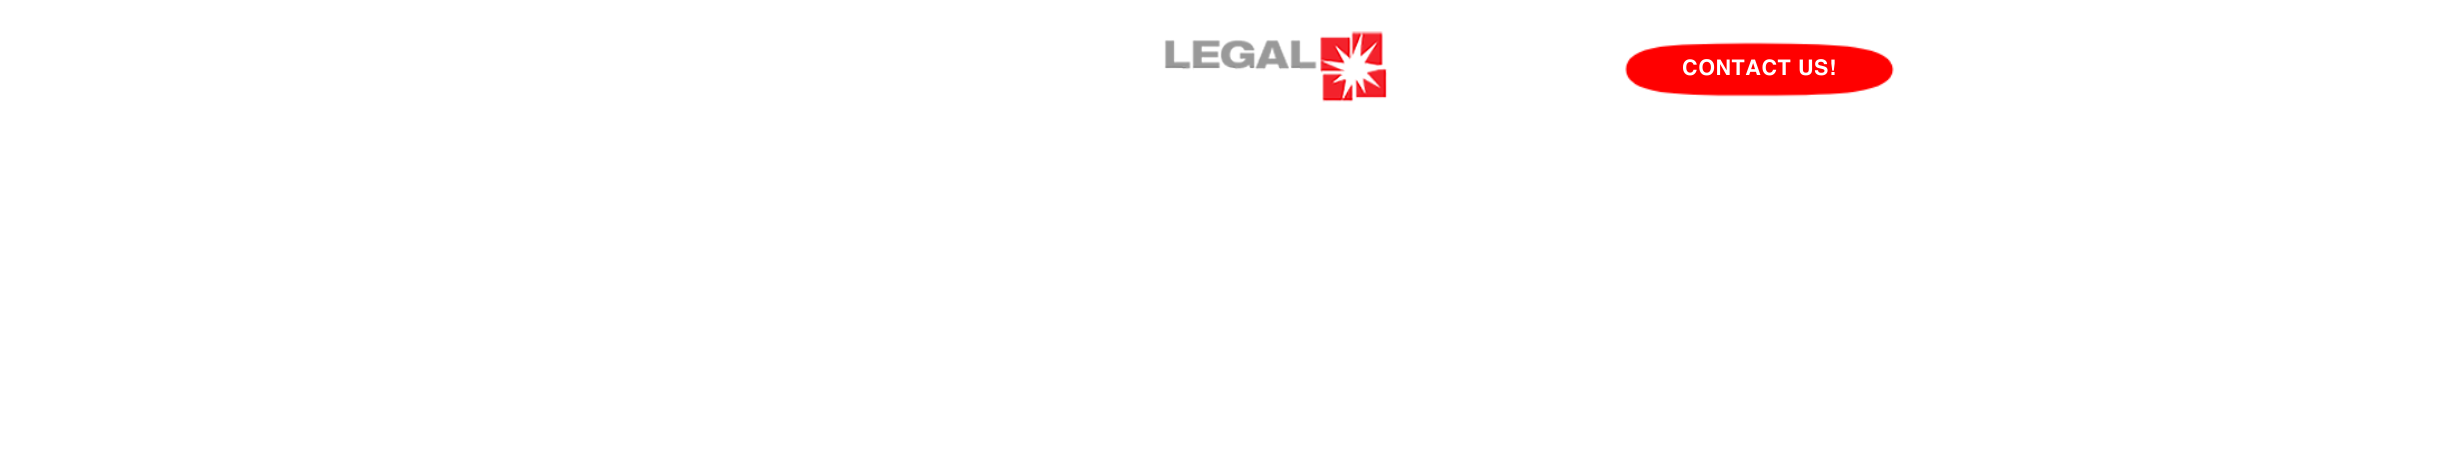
#include <cairo.h>
#include <math.h>
#include <stddef.h>


static void ink(cairo_t *ctx, unsigned color) {
    cairo_set_source_rgb(ctx, (color >> 16) / 255.0, (color >> 8 & 255) / 255.0, (color & 255) / 255.0);
}

static void write_spaced(cairo_t *ctx, double x, double y, const char *s, double letter, double word) {
    cairo_move_to(ctx, x, y);
    while (*s) {
        char ch[5] = {0};
        int n = 0;
        do ch[n++] = *s++; while ((*s & 0xC0) == 0x80);
        cairo_show_text(ctx, ch);
        cairo_rel_move_to(ctx, letter + word * (*ch == ' '), 0);
    }
}

static void paste(cairo_t *ctx, const char *path, double x, double y, double w, double h) {
    cairo_surface_t *image = cairo_image_surface_create_from_png(path);
    cairo_save(ctx);
    cairo_set_source_surface(ctx, image, x, y);
    cairo_rectangle(ctx, x, y, w, h);
    cairo_fill(ctx);
    cairo_restore(ctx);
    cairo_surface_destroy(image);
}

int main(void) {
    cairo_surface_t *surface = cairo_image_surface_create(CAIRO_FORMAT_RGB24, 2459, 452);
    cairo_t *ctx = cairo_create(surface);
    cairo_font_options_t *options = cairo_font_options_create();
    cairo_font_options_set_hint_metrics(options, CAIRO_HINT_METRICS_OFF);
    cairo_font_options_set_hint_style(options, CAIRO_HINT_STYLE_NONE);
    cairo_set_font_options(ctx, options);
    cairo_set_miter_limit(ctx, 4);
    ink(ctx, 0xFFFFFF);
    cairo_paint(ctx);
    paste(ctx, "media/1.png", 1164, 31, 224, 72);
    paste(ctx, "media/2.png", 1625, 42, 269, 55);
    cairo_select_font_face(ctx, "Helvetica", CAIRO_FONT_SLANT_NORMAL, CAIRO_FONT_WEIGHT_BOLD);
    cairo_set_font_size(ctx, 21.5);
    ink(ctx, 0xFFFFFF);
    write_spaced(ctx, 1682, 75, "CONTACT US!", 0.6, 0);
    cairo_surface_write_to_png(surface, "image.png");
    cairo_font_options_destroy(options);
    cairo_destroy(ctx);
    cairo_surface_destroy(surface);
    return 0;
}
